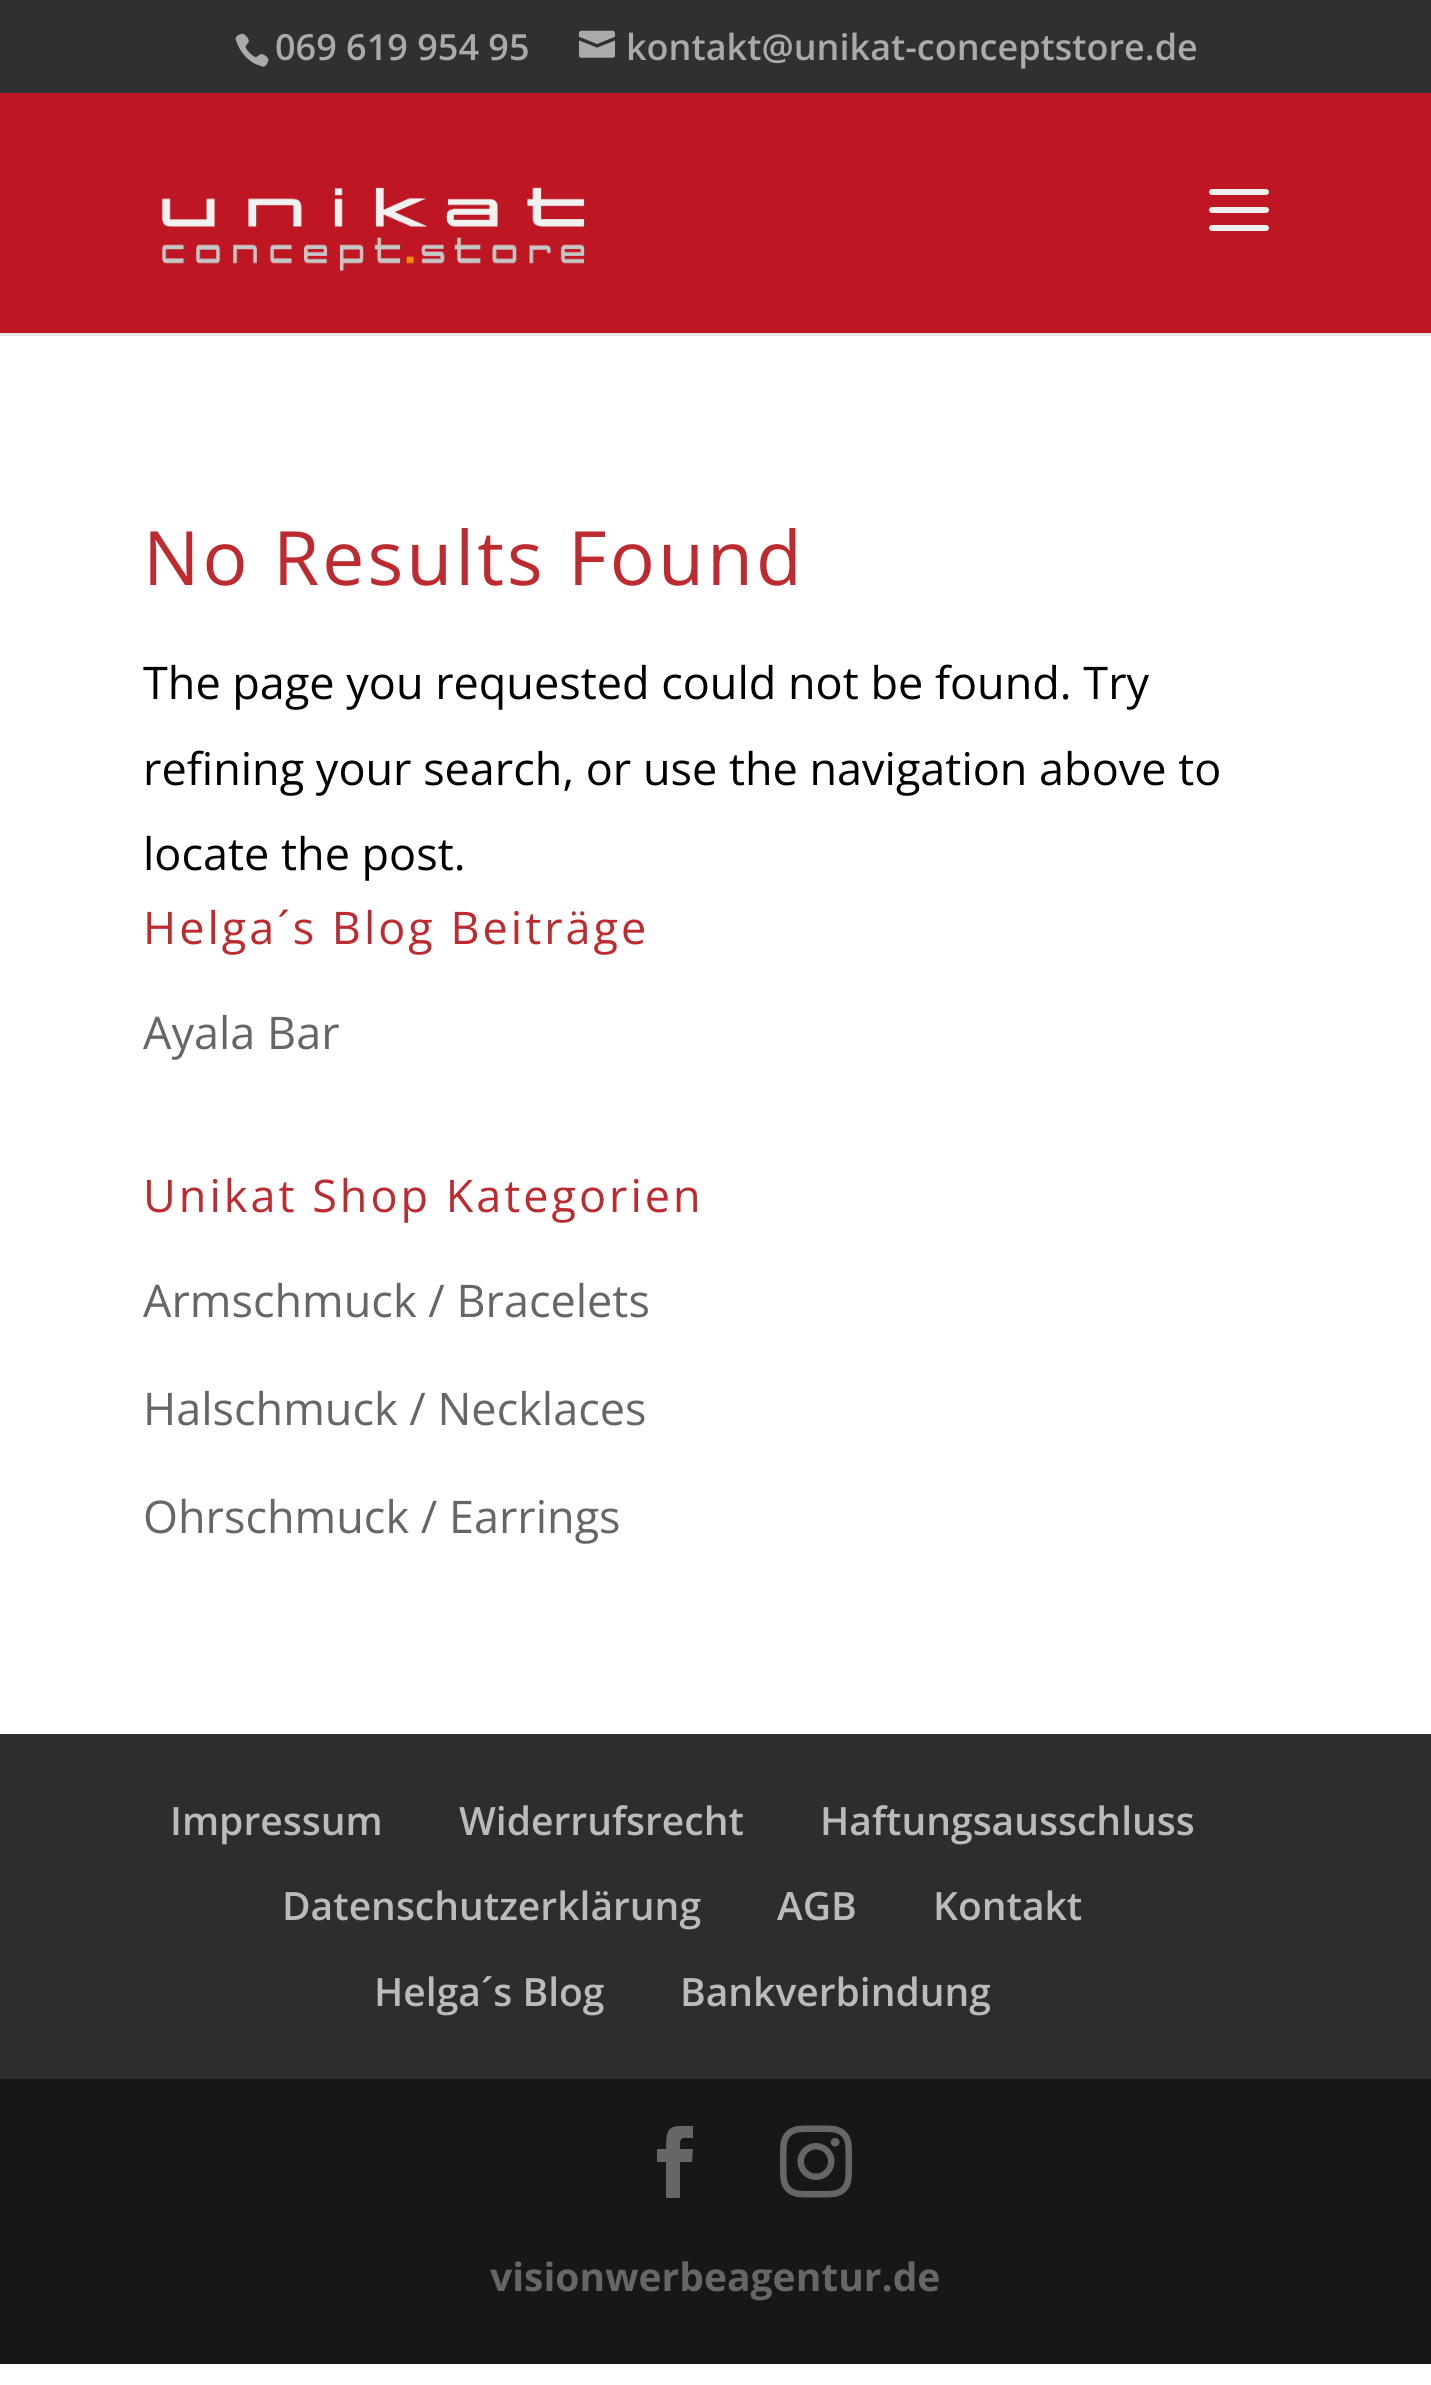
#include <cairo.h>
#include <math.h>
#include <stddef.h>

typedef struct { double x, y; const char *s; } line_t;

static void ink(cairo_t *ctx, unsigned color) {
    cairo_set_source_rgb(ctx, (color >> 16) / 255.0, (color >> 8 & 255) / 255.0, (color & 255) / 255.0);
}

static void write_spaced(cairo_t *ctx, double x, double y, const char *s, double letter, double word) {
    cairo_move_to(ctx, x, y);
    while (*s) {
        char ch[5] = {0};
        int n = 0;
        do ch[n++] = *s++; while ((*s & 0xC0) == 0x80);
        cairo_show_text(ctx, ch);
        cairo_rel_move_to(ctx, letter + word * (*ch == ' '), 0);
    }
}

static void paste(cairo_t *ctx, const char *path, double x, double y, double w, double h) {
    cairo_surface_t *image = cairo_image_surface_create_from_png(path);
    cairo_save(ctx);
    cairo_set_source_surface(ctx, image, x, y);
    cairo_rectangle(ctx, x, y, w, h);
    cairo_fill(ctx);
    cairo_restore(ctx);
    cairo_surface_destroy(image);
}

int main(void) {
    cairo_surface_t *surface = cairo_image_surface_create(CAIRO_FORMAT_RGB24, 1431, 2385);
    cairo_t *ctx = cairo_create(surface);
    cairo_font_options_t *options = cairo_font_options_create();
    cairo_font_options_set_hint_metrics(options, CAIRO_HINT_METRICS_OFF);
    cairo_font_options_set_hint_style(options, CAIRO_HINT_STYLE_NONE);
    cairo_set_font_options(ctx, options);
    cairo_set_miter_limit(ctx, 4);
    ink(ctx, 0xFFFFFF);
    cairo_paint(ctx);
    ink(ctx, 0x303030);
    cairo_rectangle(ctx, 0, 0, 1431, 93);
    cairo_fill(ctx);
    paste(ctx, "media/1.png", 235, 33, 34, 34);
    cairo_select_font_face(ctx, "Open Sans SemiBold", CAIRO_FONT_SLANT_NORMAL, CAIRO_FONT_WEIGHT_NORMAL);
    cairo_set_font_size(ctx, 36);
    ink(ctx, 0xAAAAAA);
    cairo_move_to(ctx, 275, 60);
    cairo_show_text(ctx, "069 619 954 95");
    paste(ctx, "media/2.png", 579, 30, 36, 28);
    cairo_move_to(ctx, 626, 60);
    cairo_show_text(ctx, "kontakt@unikat-conceptstore.de");
    ink(ctx, 0xE6E6E6);
    cairo_rectangle(ctx, 0, 333, 1431, 3);
    cairo_fill(ctx);
    ink(ctx, 0xBE1622);
    cairo_rectangle(ctx, 0, 93, 1431, 240);
    cairo_fill(ctx);
    paste(ctx, "media/3.png", 162, 187, 423, 85);
    paste(ctx, "media/4.png", 1209, 189, 60, 42);
    cairo_select_font_face(ctx, "Open Sans", CAIRO_FONT_SLANT_NORMAL, CAIRO_FONT_WEIGHT_NORMAL);
    cairo_set_font_size(ctx, 75);
    ink(ctx, 0xBD2B30);
    write_spaced(ctx, 143, 585, "No Results Found", 3, 0);
    cairo_set_font_size(ctx, 45);
    ink(ctx, 0x000000);
    {
        static const line_t items[] = {
            {143, 699, "The page you requested could not be found. Try"},
            {143, 785, "refining your search, or use the navigation above to"},
            {143, 870, "locate the post."},
        };
        for (size_t i = 0; i < sizeof items / sizeof *items; i++) {
            cairo_move_to(ctx, items[i].x, items[i].y);
            cairo_show_text(ctx, items[i].s);
        }
    }
    ink(ctx, 0xBD2B30);
    write_spaced(ctx, 143, 944, "Helga´s Blog Beiträge", 3, 0);
    ink(ctx, 0x666666);
    cairo_move_to(ctx, 143, 1049);
    cairo_show_text(ctx, "Ayala Bar");
    ink(ctx, 0xBD2B30);
    write_spaced(ctx, 143, 1212, "Unikat Shop Kategorien", 3, 0);
    ink(ctx, 0x666666);
    {
        static const line_t items[] = {
            {143, 1317, "Armschmuck / Bracelets"},
            {143, 1425, "Halschmuck / Necklaces"},
            {143, 1533, "Ohrschmuck / Earrings"},
        };
        for (size_t i = 0; i < sizeof items / sizeof *items; i++) {
            cairo_move_to(ctx, items[i].x, items[i].y);
            cairo_show_text(ctx, items[i].s);
        }
    }
    ink(ctx, 0x2D2D2D);
    cairo_rectangle(ctx, 0, 1734, 1431, 345);
    cairo_fill(ctx);
    cairo_select_font_face(ctx, "Open Sans SemiBold", CAIRO_FONT_SLANT_NORMAL, CAIRO_FONT_WEIGHT_NORMAL);
    cairo_set_font_size(ctx, 39);
    ink(ctx, 0xBBBBBB);
    {
        static const line_t items[] = {
            {170, 1835, "Impressum"},
            {459, 1835, "Widerrufsrecht"},
            {820, 1835, "Haftungsausschluss"},
            {282, 1920, "Datenschutzerklärung"},
            {777, 1920, "AGB"},
            {933, 1920, "Kontakt"},
            {374, 2006, "Helga´s Blog"},
            {680, 2006, "Bankverbindung"},
        };
        for (size_t i = 0; i < sizeof items / sizeof *items; i++) {
            cairo_move_to(ctx, items[i].x, items[i].y);
            cairo_show_text(ctx, items[i].s);
        }
    }
    ink(ctx, 0x171717);
    cairo_rectangle(ctx, 0, 2079, 1431, 285);
    cairo_fill(ctx);
    ink(ctx, 0x666666);
    cairo_new_path(ctx);
    cairo_move_to(ctx, 666, 2198);
    cairo_line_to(ctx, 680, 2198);
    cairo_line_to(ctx, 680, 2162);
    cairo_line_to(ctx, 692, 2162);
    cairo_line_to(ctx, 693, 2149);
    cairo_line_to(ctx, 680, 2149);
    cairo_curve_to(ctx, 680, 2136, 680, 2138, 693, 2138);
    cairo_line_to(ctx, 693, 2126);
    cairo_curve_to(ctx, 670, 2126, 666, 2124, 666, 2149);
    cairo_line_to(ctx, 657, 2149);
    cairo_line_to(ctx, 657, 2162);
    cairo_line_to(ctx, 666, 2162);
    cairo_close_path(ctx);
    cairo_fill(ctx);
    paste(ctx, "media/5.png", 780, 2125, 72, 73);
    cairo_select_font_face(ctx, "Open Sans", CAIRO_FONT_SLANT_NORMAL, CAIRO_FONT_WEIGHT_BOLD);
    cairo_move_to(ctx, 490, 2291);
    cairo_show_text(ctx, "visionwerbeagentur.de");
    cairo_surface_write_to_png(surface, "image.png");
    cairo_font_options_destroy(options);
    cairo_destroy(ctx);
    cairo_surface_destroy(surface);
    return 0;
}
